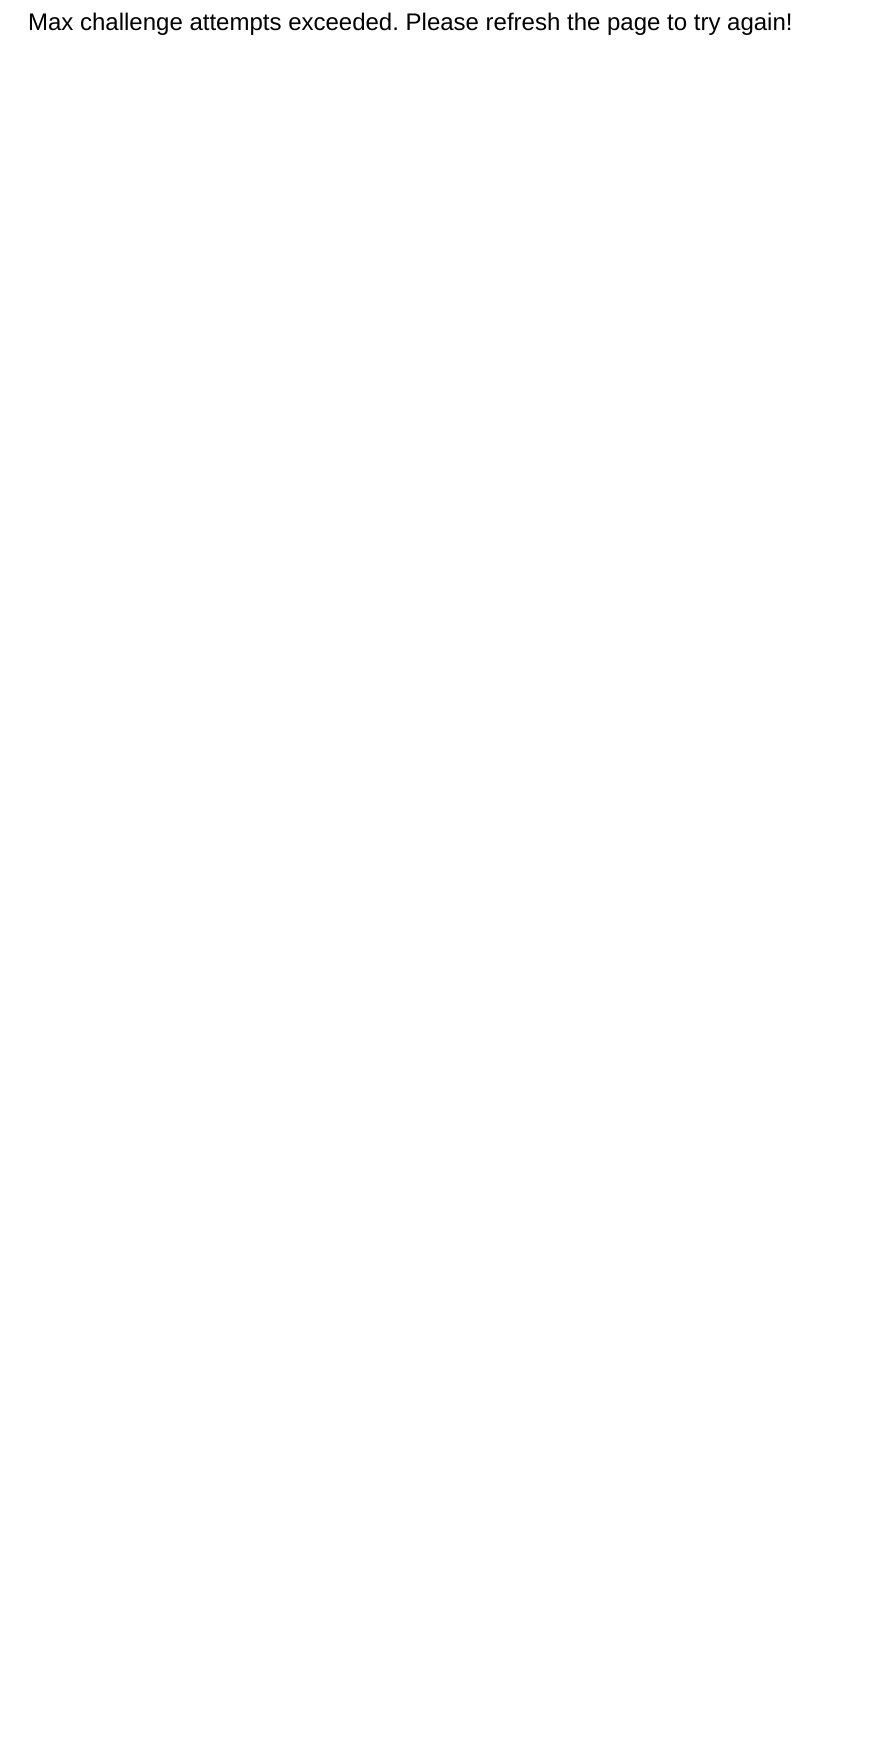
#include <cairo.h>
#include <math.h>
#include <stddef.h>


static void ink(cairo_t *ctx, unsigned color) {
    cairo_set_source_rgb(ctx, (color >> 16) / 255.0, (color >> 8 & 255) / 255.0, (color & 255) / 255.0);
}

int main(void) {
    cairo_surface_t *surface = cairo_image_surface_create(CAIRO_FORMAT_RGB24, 880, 1744);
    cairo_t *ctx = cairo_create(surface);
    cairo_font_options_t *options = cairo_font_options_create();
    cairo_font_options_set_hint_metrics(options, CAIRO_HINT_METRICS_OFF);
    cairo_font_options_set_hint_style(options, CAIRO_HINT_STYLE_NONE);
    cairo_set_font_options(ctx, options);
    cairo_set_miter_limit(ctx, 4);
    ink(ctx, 0xFFFFFF);
    cairo_paint(ctx);
    cairo_select_font_face(ctx, "Liberation Sans", CAIRO_FONT_SLANT_NORMAL, CAIRO_FONT_WEIGHT_NORMAL);
    cairo_set_font_size(ctx, 24);
    ink(ctx, 0x000000);
    cairo_move_to(ctx, 28, 30);
    cairo_show_text(ctx, "Max challenge attempts exceeded. Please refresh the page to try again!");
    cairo_surface_write_to_png(surface, "image.png");
    cairo_font_options_destroy(options);
    cairo_destroy(ctx);
    cairo_surface_destroy(surface);
    return 0;
}
